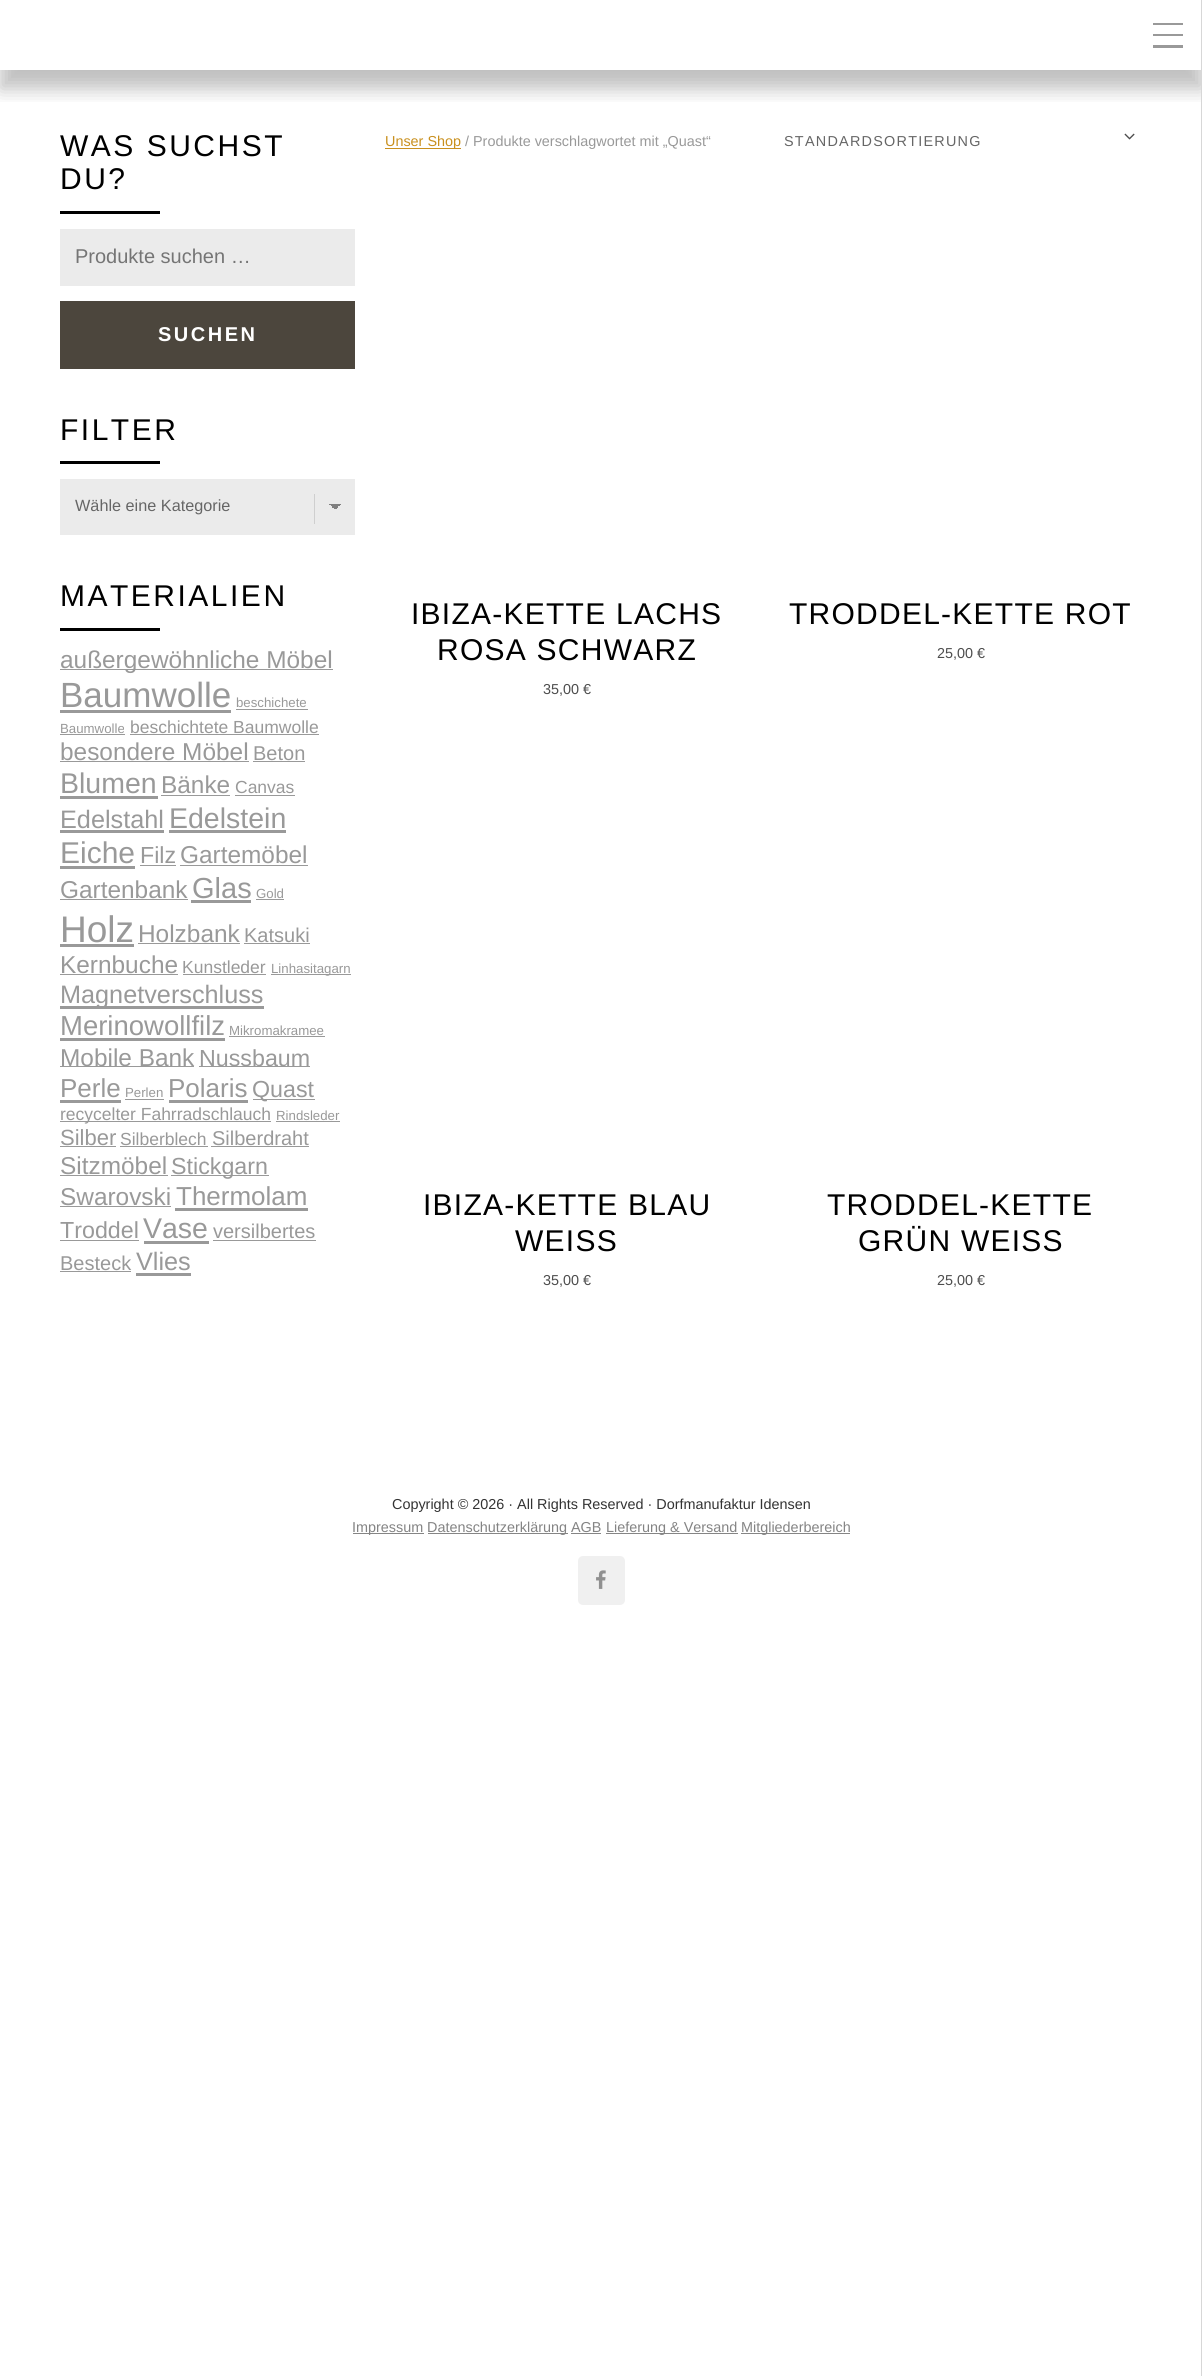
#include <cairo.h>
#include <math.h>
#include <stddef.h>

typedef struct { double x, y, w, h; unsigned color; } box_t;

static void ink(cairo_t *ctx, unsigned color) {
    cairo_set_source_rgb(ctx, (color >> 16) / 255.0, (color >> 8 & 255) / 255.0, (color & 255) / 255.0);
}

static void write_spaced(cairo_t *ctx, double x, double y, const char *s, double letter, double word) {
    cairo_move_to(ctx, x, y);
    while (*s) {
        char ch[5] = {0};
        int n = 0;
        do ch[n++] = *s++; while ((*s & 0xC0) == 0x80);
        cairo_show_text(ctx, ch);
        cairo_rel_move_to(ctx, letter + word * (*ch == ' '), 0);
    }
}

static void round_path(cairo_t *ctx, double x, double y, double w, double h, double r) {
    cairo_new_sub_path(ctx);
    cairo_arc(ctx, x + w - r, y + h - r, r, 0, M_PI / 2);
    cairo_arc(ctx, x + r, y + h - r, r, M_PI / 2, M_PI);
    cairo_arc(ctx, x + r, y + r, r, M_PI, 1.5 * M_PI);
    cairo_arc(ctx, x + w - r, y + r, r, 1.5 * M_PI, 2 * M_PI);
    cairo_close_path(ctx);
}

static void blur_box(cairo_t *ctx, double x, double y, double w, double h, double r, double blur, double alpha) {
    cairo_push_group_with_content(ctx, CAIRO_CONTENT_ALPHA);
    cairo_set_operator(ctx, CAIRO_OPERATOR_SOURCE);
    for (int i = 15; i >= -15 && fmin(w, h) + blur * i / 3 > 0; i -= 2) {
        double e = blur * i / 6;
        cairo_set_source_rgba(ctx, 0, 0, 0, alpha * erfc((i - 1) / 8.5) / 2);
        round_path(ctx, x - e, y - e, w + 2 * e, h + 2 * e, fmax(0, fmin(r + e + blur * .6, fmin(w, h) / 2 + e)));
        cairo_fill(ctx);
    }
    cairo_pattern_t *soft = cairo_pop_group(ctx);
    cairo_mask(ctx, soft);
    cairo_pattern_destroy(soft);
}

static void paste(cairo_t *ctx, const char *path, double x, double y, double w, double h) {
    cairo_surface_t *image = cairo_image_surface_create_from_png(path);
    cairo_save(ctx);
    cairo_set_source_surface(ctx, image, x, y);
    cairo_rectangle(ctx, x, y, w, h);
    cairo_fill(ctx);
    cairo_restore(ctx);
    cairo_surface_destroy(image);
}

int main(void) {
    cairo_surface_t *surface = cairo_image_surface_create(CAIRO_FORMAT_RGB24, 1202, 2376);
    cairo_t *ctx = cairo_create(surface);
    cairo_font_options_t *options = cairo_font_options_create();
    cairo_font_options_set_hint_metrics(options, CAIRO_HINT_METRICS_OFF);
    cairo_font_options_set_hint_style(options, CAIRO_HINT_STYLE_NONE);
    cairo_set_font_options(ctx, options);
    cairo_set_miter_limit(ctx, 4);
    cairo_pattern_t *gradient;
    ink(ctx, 0xFFFFFF);
    cairo_paint(ctx);
    cairo_save(ctx);
    cairo_rectangle(ctx, 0, 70, 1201, 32);
    cairo_clip(ctx);
    ink(ctx, 0x000000);
    blur_box(ctx, 0, 19, 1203, 70, 0, 9.5, 0.25);
    cairo_restore(ctx);
    {
        static const box_t items[] = {
            {1153, 23, 30, 2, 0x999999},
            {1153, 34, 30, 2, 0x999999},
            {1153, 45, 30, 3, 0x999999},
        };
        for (size_t i = 0; i < sizeof items / sizeof *items; i++) {
            ink(ctx, items[i].color);
            cairo_rectangle(ctx, items[i].x, items[i].y, items[i].w, items[i].h);
            cairo_fill(ctx);
        }
    }
    cairo_select_font_face(ctx, "Liberation Sans", CAIRO_FONT_SLANT_NORMAL, CAIRO_FONT_WEIGHT_NORMAL);
    cairo_set_font_size(ctx, 30);
    ink(ctx, 0x000000);
    write_spaced(ctx, 60, 156, "WAS SUCHST", 2.5, 0);
    write_spaced(ctx, 60, 189, "DU?", 2.5, 0);
    cairo_rectangle(ctx, 60, 211, 100, 3);
    cairo_fill(ctx);
    ink(ctx, 0xEBEBEB);
    cairo_rectangle(ctx, 60, 229, 295, 57);
    cairo_fill(ctx);
    cairo_set_font_size(ctx, 20);
    ink(ctx, 0x757575);
    cairo_move_to(ctx, 75, 263);
    cairo_show_text(ctx, "Produkte suchen …");
    ink(ctx, 0x4C463D);
    cairo_rectangle(ctx, 60, 301, 295, 68);
    cairo_fill(ctx);
    cairo_select_font_face(ctx, "Liberation Sans", CAIRO_FONT_SLANT_NORMAL, CAIRO_FONT_WEIGHT_BOLD);
    ink(ctx, 0xFFFFFF);
    write_spaced(ctx, 158, 341, "SUCHEN", 2.5, 0);
    cairo_select_font_face(ctx, "Liberation Sans", CAIRO_FONT_SLANT_NORMAL, CAIRO_FONT_WEIGHT_NORMAL);
    cairo_set_font_size(ctx, 30);
    ink(ctx, 0x000000);
    write_spaced(ctx, 60, 440, "FILTER", 2.5, 0);
    {
        static const box_t items[] = {
            {60, 461, 100, 3, 0x000000},
            {60, 479, 295, 56, 0xEBEBEB},
            {314, 494, 1, 30, 0xCFCFCF},
        };
        for (size_t i = 0; i < sizeof items / sizeof *items; i++) {
            ink(ctx, items[i].color);
            cairo_rectangle(ctx, items[i].x, items[i].y, items[i].w, items[i].h);
            cairo_fill(ctx);
        }
    }
    gradient = cairo_pattern_create_linear(335, 504, 341, 510);
    cairo_pattern_add_color_stop_rgba(gradient, 0.5, 0.502, 0.502, 0.502, 1);
    cairo_pattern_add_color_stop_rgba(gradient, 0.5, 0.922, 0.922, 0.922, 1);
    cairo_set_source(ctx, gradient);
    cairo_pattern_destroy(gradient);
    cairo_rectangle(ctx, 335, 504, 6, 5);
    cairo_fill(ctx);
    gradient = cairo_pattern_create_linear(329, 510, 335, 504);
    cairo_pattern_add_color_stop_rgba(gradient, 0.5, 0.922, 0.922, 0.922, 1);
    cairo_pattern_add_color_stop_rgba(gradient, 0.5, 0.502, 0.502, 0.502, 1);
    cairo_set_source(ctx, gradient);
    cairo_pattern_destroy(gradient);
    cairo_rectangle(ctx, 329, 504, 6, 5);
    cairo_fill(ctx);
    cairo_set_font_size(ctx, 16.25);
    ink(ctx, 0x666666);
    cairo_move_to(ctx, 75, 511);
    cairo_show_text(ctx, "Wähle eine Kategorie");
    cairo_set_font_size(ctx, 30);
    ink(ctx, 0x000000);
    write_spaced(ctx, 60, 606, "MATERIALIEN", 2.5, 0);
    cairo_rectangle(ctx, 60, 628, 100, 3);
    cairo_fill(ctx);
    ink(ctx, 0x999999);
    cairo_rectangle(ctx, 60, 669, 273, 1);
    cairo_fill(ctx);
    cairo_set_font_size(ctx, 24.4);
    cairo_move_to(ctx, 60, 668);
    cairo_show_text(ctx, "außergewöhnliche Möbel");
    cairo_set_font_size(ctx, 35);
    cairo_move_to(ctx, 60, 707);
    cairo_show_text(ctx, "Baumwolle");
    cairo_rectangle(ctx, 60, 710, 171, 3);
    cairo_fill(ctx);
    cairo_set_font_size(ctx, 13.25);
    cairo_move_to(ctx, 236, 707);
    cairo_show_text(ctx, "beschichete");
    cairo_rectangle(ctx, 236, 709, 72, 1);
    cairo_fill(ctx);
    cairo_move_to(ctx, 60, 733);
    cairo_show_text(ctx, "Baumwolle");
    cairo_rectangle(ctx, 60, 734, 65, 1);
    cairo_fill(ctx);
    cairo_set_font_size(ctx, 17.5);
    cairo_move_to(ctx, 130, 733);
    cairo_show_text(ctx, "beschichtete Baumwolle");
    cairo_rectangle(ctx, 130, 734, 189, 1);
    cairo_fill(ctx);
    cairo_set_font_size(ctx, 24.4);
    cairo_move_to(ctx, 60, 760);
    cairo_show_text(ctx, "besondere Möbel");
    cairo_rectangle(ctx, 60, 761, 189, 1);
    cairo_fill(ctx);
    cairo_set_font_size(ctx, 20);
    cairo_move_to(ctx, 253, 760);
    cairo_show_text(ctx, "Beton");
    cairo_rectangle(ctx, 253, 761, 52, 1);
    cairo_fill(ctx);
    cairo_set_font_size(ctx, 28.5);
    cairo_move_to(ctx, 60, 793);
    cairo_show_text(ctx, "Blumen");
    cairo_rectangle(ctx, 60, 796, 98, 3);
    cairo_fill(ctx);
    cairo_set_font_size(ctx, 24.4);
    cairo_move_to(ctx, 161, 793);
    cairo_show_text(ctx, "Bänke");
    cairo_rectangle(ctx, 161, 795, 69, 1);
    cairo_fill(ctx);
    cairo_set_font_size(ctx, 17.5);
    cairo_move_to(ctx, 235, 793);
    cairo_show_text(ctx, "Canvas");
    cairo_rectangle(ctx, 235, 795, 60, 1);
    cairo_fill(ctx);
    cairo_set_font_size(ctx, 25.25);
    cairo_move_to(ctx, 60, 828);
    cairo_show_text(ctx, "Edelstahl");
    cairo_rectangle(ctx, 60, 830, 104, 3);
    cairo_fill(ctx);
    cairo_set_font_size(ctx, 28.5);
    cairo_move_to(ctx, 169, 828);
    cairo_show_text(ctx, "Edelstein");
    cairo_rectangle(ctx, 169, 830, 117, 3);
    cairo_fill(ctx);
    cairo_set_font_size(ctx, 30);
    cairo_move_to(ctx, 60, 863);
    cairo_show_text(ctx, "Eiche");
    cairo_rectangle(ctx, 60, 866, 75, 3);
    cairo_fill(ctx);
    cairo_set_font_size(ctx, 23.25);
    cairo_move_to(ctx, 140, 863);
    cairo_show_text(ctx, "Filz");
    cairo_rectangle(ctx, 140, 865, 36, 1);
    cairo_fill(ctx);
    cairo_set_font_size(ctx, 24.4);
    cairo_move_to(ctx, 180, 863);
    cairo_show_text(ctx, "Gartemöbel");
    cairo_rectangle(ctx, 180, 865, 128, 1);
    cairo_fill(ctx);
    cairo_move_to(ctx, 60, 898);
    cairo_show_text(ctx, "Gartenbank");
    cairo_rectangle(ctx, 60, 899, 128, 1);
    cairo_fill(ctx);
    cairo_set_font_size(ctx, 29);
    cairo_move_to(ctx, 192, 898);
    cairo_show_text(ctx, "Glas");
    cairo_rectangle(ctx, 191, 900, 60, 3);
    cairo_fill(ctx);
    cairo_set_font_size(ctx, 13.25);
    cairo_move_to(ctx, 256, 898);
    cairo_show_text(ctx, "Gold");
    cairo_rectangle(ctx, 256, 899, 28, 1);
    cairo_fill(ctx);
    cairo_set_font_size(ctx, 37);
    cairo_move_to(ctx, 60, 942);
    cairo_show_text(ctx, "Holz");
    cairo_rectangle(ctx, 60, 944, 74, 3);
    cairo_fill(ctx);
    cairo_set_font_size(ctx, 24.4);
    cairo_move_to(ctx, 138, 942);
    cairo_show_text(ctx, "Holzbank");
    cairo_rectangle(ctx, 138, 943, 102, 1);
    cairo_fill(ctx);
    cairo_set_font_size(ctx, 20);
    cairo_move_to(ctx, 244, 942);
    cairo_show_text(ctx, "Katsuki");
    cairo_rectangle(ctx, 244, 943, 66, 1);
    cairo_fill(ctx);
    cairo_set_font_size(ctx, 24.4);
    cairo_move_to(ctx, 60, 973);
    cairo_show_text(ctx, "Kernbuche");
    cairo_rectangle(ctx, 60, 974, 118, 1);
    cairo_fill(ctx);
    cairo_set_font_size(ctx, 17.5);
    cairo_move_to(ctx, 182, 973);
    cairo_show_text(ctx, "Kunstleder");
    cairo_rectangle(ctx, 183, 974, 83, 1);
    cairo_fill(ctx);
    cairo_rectangle(ctx, 271, 974, 80, 1);
    cairo_fill(ctx);
    cairo_set_font_size(ctx, 13.25);
    cairo_move_to(ctx, 271, 973);
    cairo_show_text(ctx, "Linhasitagarn");
    cairo_rectangle(ctx, 60, 1006, 204, 3);
    cairo_fill(ctx);
    cairo_set_font_size(ctx, 25.25);
    cairo_move_to(ctx, 60, 1003);
    cairo_show_text(ctx, "Magnetverschluss");
    cairo_set_font_size(ctx, 27.5);
    cairo_move_to(ctx, 60, 1035);
    cairo_show_text(ctx, "Merinowollfilz");
    cairo_rectangle(ctx, 60, 1038, 165, 3);
    cairo_fill(ctx);
    cairo_set_font_size(ctx, 13.25);
    cairo_move_to(ctx, 229, 1035);
    cairo_show_text(ctx, "Mikromakramee");
    cairo_rectangle(ctx, 229, 1036, 96, 1);
    cairo_fill(ctx);
    cairo_rectangle(ctx, 60, 1066, 134, 1);
    cairo_fill(ctx);
    cairo_set_font_size(ctx, 24.4);
    cairo_move_to(ctx, 60, 1066);
    cairo_show_text(ctx, "Mobile Bank");
    cairo_rectangle(ctx, 199, 1066, 111, 1);
    cairo_fill(ctx);
    cairo_set_font_size(ctx, 23.25);
    cairo_move_to(ctx, 199, 1066);
    cairo_show_text(ctx, "Nussbaum");
    cairo_set_font_size(ctx, 26);
    cairo_move_to(ctx, 60, 1097);
    cairo_show_text(ctx, "Perle");
    cairo_rectangle(ctx, 60, 1100, 61, 3);
    cairo_fill(ctx);
    cairo_set_font_size(ctx, 13.25);
    cairo_move_to(ctx, 125, 1097);
    cairo_show_text(ctx, "Perlen");
    cairo_rectangle(ctx, 125, 1099, 39, 1);
    cairo_fill(ctx);
    cairo_set_font_size(ctx, 26);
    cairo_move_to(ctx, 168, 1097);
    cairo_show_text(ctx, "Polaris");
    cairo_rectangle(ctx, 169, 1100, 79, 3);
    cairo_fill(ctx);
    cairo_rectangle(ctx, 253, 1099, 62, 1);
    cairo_fill(ctx);
    cairo_set_font_size(ctx, 23.25);
    cairo_move_to(ctx, 252, 1097);
    cairo_show_text(ctx, "Quast");
    cairo_rectangle(ctx, 60, 1121, 211, 1);
    cairo_fill(ctx);
    cairo_set_font_size(ctx, 17.5);
    cairo_move_to(ctx, 60, 1120);
    cairo_show_text(ctx, "recycelter Fahrradschlauch");
    cairo_set_font_size(ctx, 13.25);
    cairo_move_to(ctx, 276, 1120);
    cairo_show_text(ctx, "Rindsleder");
    cairo_rectangle(ctx, 276, 1121, 64, 1);
    cairo_fill(ctx);
    cairo_set_font_size(ctx, 22);
    cairo_move_to(ctx, 60, 1145);
    cairo_show_text(ctx, "Silber");
    cairo_rectangle(ctx, 60, 1146, 56, 1);
    cairo_fill(ctx);
    cairo_set_font_size(ctx, 17.5);
    cairo_move_to(ctx, 120, 1145);
    cairo_show_text(ctx, "Silberblech");
    cairo_rectangle(ctx, 120, 1146, 88, 1);
    cairo_fill(ctx);
    cairo_set_font_size(ctx, 20);
    cairo_move_to(ctx, 212, 1145);
    cairo_show_text(ctx, "Silberdraht");
    cairo_rectangle(ctx, 211, 1146, 98, 1);
    cairo_fill(ctx);
    cairo_set_font_size(ctx, 24.4);
    cairo_move_to(ctx, 60, 1174);
    cairo_show_text(ctx, "Sitzmöbel");
    cairo_rectangle(ctx, 60, 1175, 108, 1);
    cairo_fill(ctx);
    cairo_rectangle(ctx, 171, 1175, 98, 1);
    cairo_fill(ctx);
    cairo_set_font_size(ctx, 23.25);
    cairo_move_to(ctx, 171, 1174);
    cairo_show_text(ctx, "Stickgarn");
    cairo_set_font_size(ctx, 24.4);
    cairo_move_to(ctx, 60, 1205);
    cairo_show_text(ctx, "Swarovski");
    cairo_rectangle(ctx, 60, 1206, 111, 1);
    cairo_fill(ctx);
    cairo_set_font_size(ctx, 26);
    cairo_move_to(ctx, 176, 1205);
    cairo_show_text(ctx, "Thermolam");
    cairo_rectangle(ctx, 175, 1208, 133, 3);
    cairo_fill(ctx);
    cairo_set_font_size(ctx, 23.25);
    cairo_move_to(ctx, 60, 1238);
    cairo_show_text(ctx, "Troddel");
    cairo_rectangle(ctx, 60, 1240, 79, 1);
    cairo_fill(ctx);
    cairo_set_font_size(ctx, 28.5);
    cairo_move_to(ctx, 143, 1238);
    cairo_show_text(ctx, "Vase");
    cairo_rectangle(ctx, 144, 1241, 65, 3);
    cairo_fill(ctx);
    cairo_set_font_size(ctx, 20);
    cairo_move_to(ctx, 213, 1238);
    cairo_show_text(ctx, "versilbertes");
    cairo_rectangle(ctx, 213, 1240, 103, 1);
    cairo_fill(ctx);
    cairo_move_to(ctx, 60, 1270);
    cairo_show_text(ctx, "Besteck");
    cairo_rectangle(ctx, 60, 1271, 71, 1);
    cairo_fill(ctx);
    cairo_set_font_size(ctx, 25.25);
    cairo_move_to(ctx, 136, 1270);
    cairo_show_text(ctx, "Vlies");
    cairo_rectangle(ctx, 136, 1273, 55, 3);
    cairo_fill(ctx);
    ink(ctx, 0xC9901E);
    cairo_rectangle(ctx, 385, 148, 76, 1);
    cairo_fill(ctx);
    cairo_set_font_size(ctx, 14.4);
    cairo_move_to(ctx, 385, 146);
    cairo_show_text(ctx, "Unser Shop");
    ink(ctx, 0x999999);
    cairo_move_to(ctx, 465, 146);
    cairo_show_text(ctx, "/ Produkte verschlagwortet mit „Quast“");
    ink(ctx, 0x666666);
    write_spaced(ctx, 784, 146, "STANDARDSORTIERUNG", 1.25, 0);
    paste(ctx, "media/1.png", 1124, 133, 11, 7);
    cairo_set_font_size(ctx, 30);
    ink(ctx, 0x000000);
    write_spaced(ctx, 411, 624, "IBIZA-KETTE LACHS", 1.25, 0);
    write_spaced(ctx, 437, 660, "ROSA SCHWARZ", 1.25, 0);
    cairo_set_font_size(ctx, 14.4);
    ink(ctx, 0x4D4D4D);
    cairo_move_to(ctx, 543, 694);
    cairo_show_text(ctx, "35,00 €");
    cairo_set_font_size(ctx, 30);
    ink(ctx, 0x000000);
    write_spaced(ctx, 789, 624, "TRODDEL-KETTE ROT", 1.25, 0);
    cairo_set_font_size(ctx, 14.4);
    ink(ctx, 0x4D4D4D);
    cairo_move_to(ctx, 937, 658);
    cairo_show_text(ctx, "25,00 €");
    cairo_set_font_size(ctx, 30);
    ink(ctx, 0x000000);
    write_spaced(ctx, 423, 1215, "IBIZA-KETTE BLAU", 1.25, 0);
    write_spaced(ctx, 515, 1251, "WEISS", 1.25, 0);
    cairo_set_font_size(ctx, 14.4);
    ink(ctx, 0x4D4D4D);
    cairo_move_to(ctx, 543, 1285);
    cairo_show_text(ctx, "35,00 €");
    cairo_set_font_size(ctx, 30);
    ink(ctx, 0x000000);
    write_spaced(ctx, 827, 1215, "TRODDEL-KETTE", 1.25, 0);
    write_spaced(ctx, 858, 1251, "GRÜN WEISS", 1.25, 0);
    cairo_set_font_size(ctx, 14.4);
    ink(ctx, 0x4D4D4D);
    cairo_move_to(ctx, 937, 1285);
    cairo_show_text(ctx, "25,00 €");
    ink(ctx, 0x333333);
    cairo_move_to(ctx, 392, 1509);
    cairo_show_text(ctx, "Copyright © 2026 · All Rights Reserved · Dorfmanufaktur Idensen");
    ink(ctx, 0x858585);
    cairo_rectangle(ctx, 353, 1533, 71, 1);
    cairo_fill(ctx);
    ink(ctx, 0x848484);
    cairo_move_to(ctx, 352, 1532);
    cairo_show_text(ctx, "Impressum");
    ink(ctx, 0x858585);
    cairo_rectangle(ctx, 428, 1533, 140, 1);
    cairo_fill(ctx);
    ink(ctx, 0x848484);
    cairo_move_to(ctx, 427, 1532);
    cairo_show_text(ctx, "Datenschutzerklärung");
    cairo_move_to(ctx, 571, 1532);
    cairo_show_text(ctx, "AGB");
    ink(ctx, 0x858585);
    cairo_rectangle(ctx, 571, 1533, 30, 1);
    cairo_fill(ctx);
    cairo_rectangle(ctx, 606, 1533, 132, 1);
    cairo_fill(ctx);
    ink(ctx, 0x848484);
    cairo_move_to(ctx, 606, 1532);
    cairo_show_text(ctx, "Lieferung & Versand");
    ink(ctx, 0x858585);
    cairo_rectangle(ctx, 741, 1533, 109, 1);
    cairo_fill(ctx);
    ink(ctx, 0x848484);
    cairo_move_to(ctx, 741, 1532);
    cairo_show_text(ctx, "Mitgliederbereich");
    ink(ctx, 0xF0F0F0);
    round_path(ctx, 578, 1556, 47, 49, 5);
    cairo_fill(ctx);
    paste(ctx, "media/2.png", 596, 1570, 10, 19);
    ink(ctx, 0xD7D7D7);
    cairo_rectangle(ctx, 1201, 0, 1, 2376);
    cairo_fill(ctx);
    cairo_surface_write_to_png(surface, "image.png");
    cairo_font_options_destroy(options);
    cairo_destroy(ctx);
    cairo_surface_destroy(surface);
    return 0;
}
